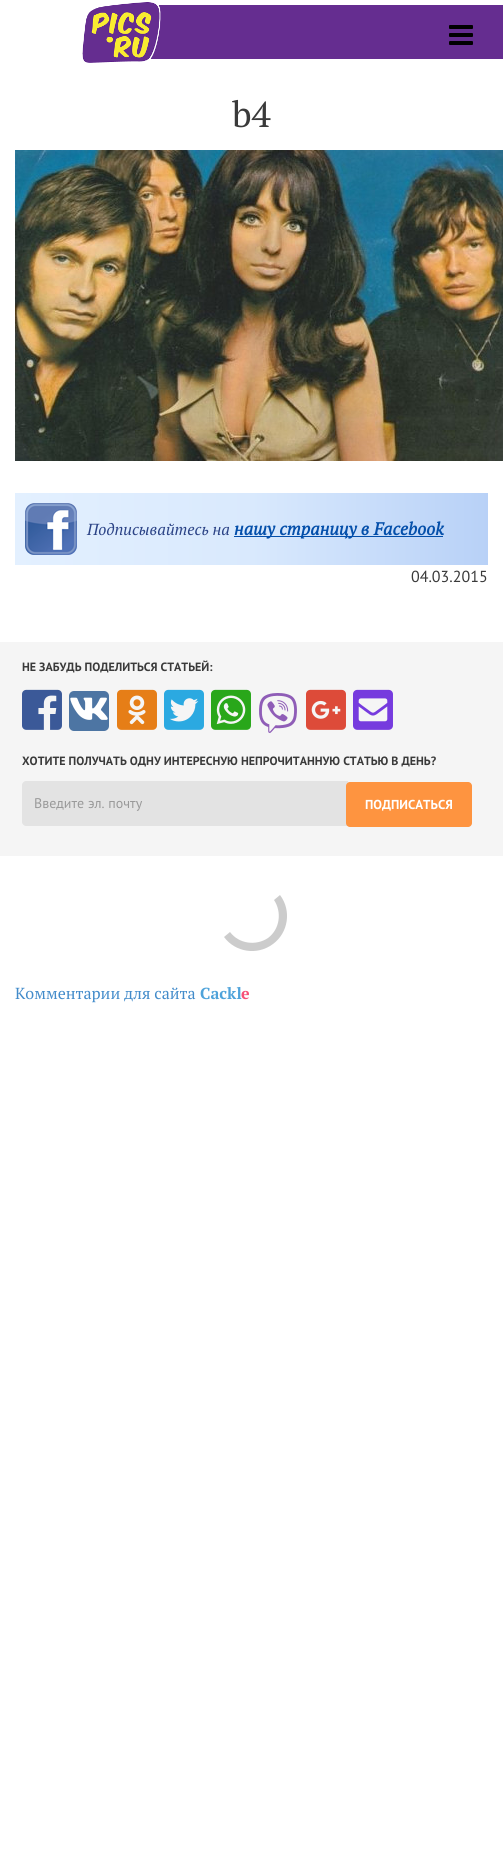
#include <cairo.h>
#include <math.h>
#include <stddef.h>


static void ink(cairo_t *ctx, unsigned color) {
    cairo_set_source_rgb(ctx, (color >> 16) / 255.0, (color >> 8 & 255) / 255.0, (color & 255) / 255.0);
}

static void round_path(cairo_t *ctx, double x, double y, double w, double h, double r) {
    cairo_new_sub_path(ctx);
    cairo_arc(ctx, x + w - r, y + h - r, r, 0, M_PI / 2);
    cairo_arc(ctx, x + r, y + h - r, r, M_PI / 2, M_PI);
    cairo_arc(ctx, x + r, y + r, r, M_PI, 1.5 * M_PI);
    cairo_arc(ctx, x + w - r, y + r, r, 1.5 * M_PI, 2 * M_PI);
    cairo_close_path(ctx);
}

static void paste(cairo_t *ctx, const char *path, double x, double y, double w, double h) {
    cairo_surface_t *image = cairo_image_surface_create_from_png(path);
    cairo_save(ctx);
    cairo_set_source_surface(ctx, image, x, y);
    cairo_rectangle(ctx, x, y, w, h);
    cairo_fill(ctx);
    cairo_restore(ctx);
    cairo_surface_destroy(image);
}

int main(void) {
    cairo_surface_t *surface = cairo_image_surface_create(CAIRO_FORMAT_RGB24, 503, 1864);
    cairo_t *ctx = cairo_create(surface);
    cairo_font_options_t *options = cairo_font_options_create();
    cairo_font_options_set_hint_metrics(options, CAIRO_HINT_METRICS_OFF);
    cairo_font_options_set_hint_style(options, CAIRO_HINT_STYLE_NONE);
    cairo_set_font_options(ctx, options);
    cairo_set_miter_limit(ctx, 4);
    cairo_pattern_t *gradient;
    ink(ctx, 0xFFFFFF);
    cairo_paint(ctx);
    paste(ctx, "media/1.png", 82, 2, 421, 61);
    paste(ctx, "media/2.png", 449, 25, 24, 20);
    cairo_select_font_face(ctx, "PT Serif", CAIRO_FONT_SLANT_NORMAL, CAIRO_FONT_WEIGHT_NORMAL);
    cairo_set_font_size(ctx, 36);
    ink(ctx, 0x3A3A3A);
    cairo_move_to(ctx, 232, 127);
    cairo_show_text(ctx, "b4");
    paste(ctx, "media/3.png", 15, 150, 488, 311);
    gradient = cairo_pattern_create_linear(15, 529, 488, 529);
    cairo_pattern_add_color_stop_rgba(gradient, 0, 0.89, 0.941, 1, 1);
    cairo_pattern_add_color_stop_rgba(gradient, 0.5, 0.851, 0.914, 0.992, 1);
    cairo_pattern_add_color_stop_rgba(gradient, 1, 0.722, 0.82, 0.969, 1);
    cairo_set_source(ctx, gradient);
    cairo_pattern_destroy(gradient);
    cairo_rectangle(ctx, 15, 493, 473, 72);
    cairo_fill(ctx);
    paste(ctx, "media/4.png", 25, 503, 52, 52);
    cairo_select_font_face(ctx, "PT Serif", CAIRO_FONT_SLANT_ITALIC, CAIRO_FONT_WEIGHT_NORMAL);
    cairo_set_font_size(ctx, 16);
    ink(ctx, 0x2B4386);
    cairo_move_to(ctx, 87, 535);
    cairo_show_text(ctx, "Подписывайтесь на");
    ink(ctx, 0x044FAA);
    cairo_rectangle(ctx, 234, 536, 209, 1);
    cairo_fill(ctx);
    cairo_select_font_face(ctx, "PT Serif", CAIRO_FONT_SLANT_ITALIC, CAIRO_FONT_WEIGHT_BOLD);
    cairo_set_font_size(ctx, 17.6);
    cairo_move_to(ctx, 234, 535);
    cairo_show_text(ctx, "нашу страницу в Facebook");
    cairo_select_font_face(ctx, "PT Sans", CAIRO_FONT_SLANT_NORMAL, CAIRO_FONT_WEIGHT_NORMAL);
    cairo_set_font_size(ctx, 16);
    ink(ctx, 0x3A3A3A);
    cairo_move_to(ctx, 411, 582);
    cairo_show_text(ctx, "04.03.2015");
    ink(ctx, 0xF5F5F5);
    cairo_rectangle(ctx, 0, 642, 503, 214);
    cairo_fill(ctx);
    cairo_select_font_face(ctx, "PT Sans", CAIRO_FONT_SLANT_NORMAL, CAIRO_FONT_WEIGHT_BOLD);
    cairo_set_font_size(ctx, 12);
    ink(ctx, 0x3A3A3A);
    cairo_move_to(ctx, 22, 671);
    cairo_show_text(ctx, "НЕ ЗАБУДЬ ПОДЕЛИТЬСЯ СТАТЬЕЙ:");
    paste(ctx, "media/5.png", 22, 689, 40, 41);
    ink(ctx, 0x4D75A3);
    round_path(ctx, 69, 691, 40, 40, 5);
    cairo_fill(ctx);
    paste(ctx, "media/6.png", 70, 697, 38, 23);
    paste(ctx, "media/7.png", 117, 689, 40, 41);
    paste(ctx, "media/8.png", 164, 689, 40, 41);
    paste(ctx, "media/9.png", 211, 689, 40, 41);
    paste(ctx, "media/10.png", 259, 693, 38, 40);
    paste(ctx, "media/11.png", 306, 689, 40, 41);
    paste(ctx, "media/12.png", 353, 689, 40, 41);
    ink(ctx, 0x3A3A3A);
    cairo_move_to(ctx, 22, 765);
    cairo_show_text(ctx, "ХОТИТЕ ПОЛУЧАТЬ ОДНУ ИНТЕРЕСНУЮ НЕПРОЧИТАННУЮ СТАТЬЮ В ДЕНЬ?");
    ink(ctx, 0xE3E3E3);
    cairo_new_path(ctx);
    cairo_move_to(ctx, 26, 781);
    cairo_line_to(ctx, 348, 781);
    cairo_line_to(ctx, 348, 826);
    cairo_line_to(ctx, 26, 826);
    cairo_curve_to(ctx, 24, 826, 22, 824, 22, 822);
    cairo_line_to(ctx, 22, 785);
    cairo_curve_to(ctx, 22, 783, 24, 781, 26, 781);
    cairo_close_path(ctx);
    cairo_fill(ctx);
    cairo_select_font_face(ctx, "PT Sans", CAIRO_FONT_SLANT_NORMAL, CAIRO_FONT_WEIGHT_NORMAL);
    cairo_set_font_size(ctx, 14);
    ink(ctx, 0x999999);
    cairo_move_to(ctx, 34, 808);
    cairo_show_text(ctx, "Введите эл. почту");
    ink(ctx, 0xFE9440);
    round_path(ctx, 346, 782, 126, 45, 4);
    cairo_fill(ctx);
    cairo_select_font_face(ctx, "PT Sans", CAIRO_FONT_SLANT_NORMAL, CAIRO_FONT_WEIGHT_BOLD);
    cairo_set_font_size(ctx, 13);
    ink(ctx, 0xFFFFFF);
    cairo_move_to(ctx, 365, 809);
    cairo_show_text(ctx, "ПОДПИСАТЬСЯ");
    ink(ctx, 0xCCCCCC);
    cairo_new_path(ctx);
    cairo_move_to(ctx, 224, 937);
    cairo_curve_to(ctx, 235, 952, 257, 956, 273, 944);
    cairo_curve_to(ctx, 288, 933, 292, 911, 280, 895);
    cairo_line_to(ctx, 274, 900);
    cairo_curve_to(ctx, 282, 912, 280, 929, 268, 938);
    cairo_curve_to(ctx, 256, 946, 239, 944, 230, 932);
    cairo_close_path(ctx);
    cairo_fill(ctx);
    cairo_select_font_face(ctx, "PT Serif", CAIRO_FONT_SLANT_NORMAL, CAIRO_FONT_WEIGHT_NORMAL);
    cairo_set_font_size(ctx, 16);
    ink(ctx, 0x428BCA);
    cairo_move_to(ctx, 15, 999);
    cairo_show_text(ctx, "Комментарии для сайта");
    cairo_select_font_face(ctx, "PT Serif", CAIRO_FONT_SLANT_NORMAL, CAIRO_FONT_WEIGHT_BOLD);
    ink(ctx, 0x4FA3DA);
    cairo_move_to(ctx, 200, 999);
    cairo_show_text(ctx, "Cackl");
    ink(ctx, 0xF65077);
    cairo_move_to(ctx, 241, 999);
    cairo_show_text(ctx, "e");
    cairo_surface_write_to_png(surface, "image.png");
    cairo_font_options_destroy(options);
    cairo_destroy(ctx);
    cairo_surface_destroy(surface);
    return 0;
}
